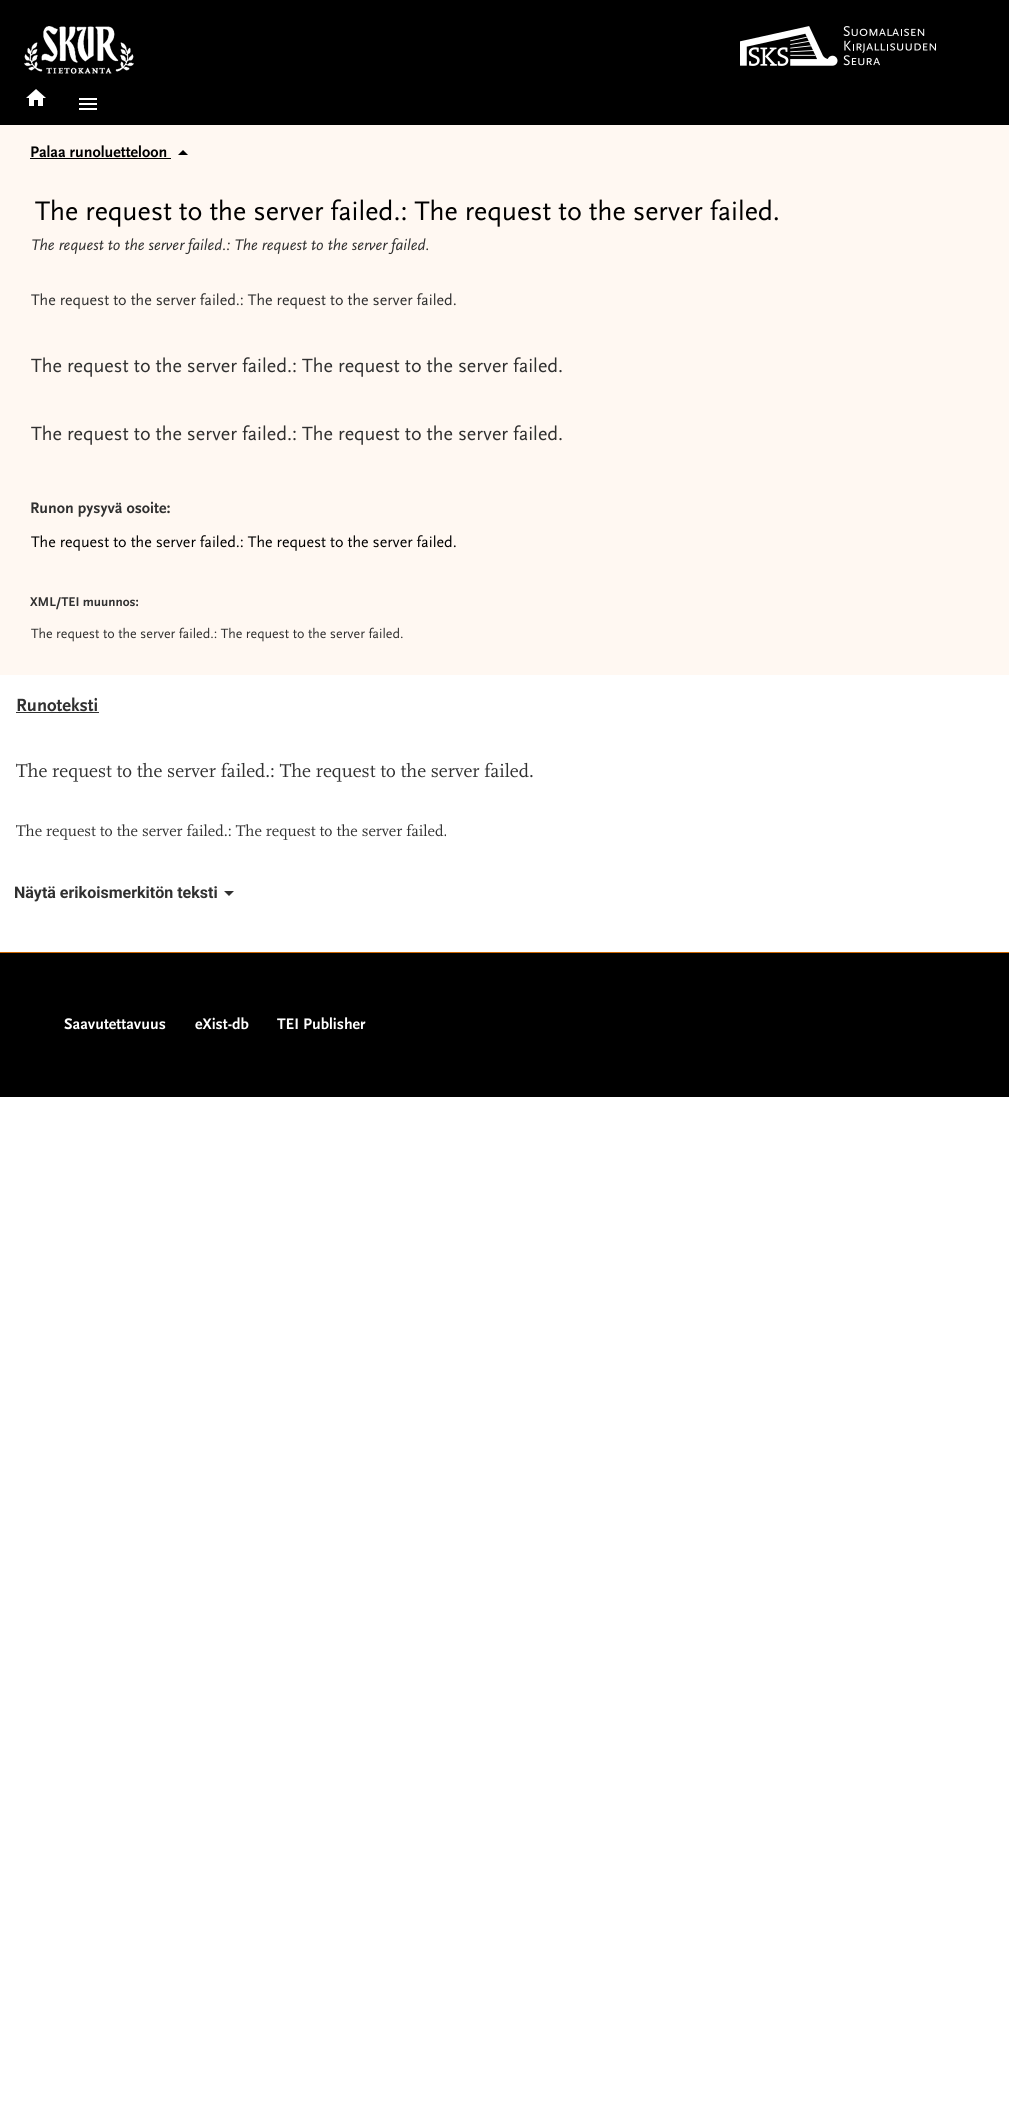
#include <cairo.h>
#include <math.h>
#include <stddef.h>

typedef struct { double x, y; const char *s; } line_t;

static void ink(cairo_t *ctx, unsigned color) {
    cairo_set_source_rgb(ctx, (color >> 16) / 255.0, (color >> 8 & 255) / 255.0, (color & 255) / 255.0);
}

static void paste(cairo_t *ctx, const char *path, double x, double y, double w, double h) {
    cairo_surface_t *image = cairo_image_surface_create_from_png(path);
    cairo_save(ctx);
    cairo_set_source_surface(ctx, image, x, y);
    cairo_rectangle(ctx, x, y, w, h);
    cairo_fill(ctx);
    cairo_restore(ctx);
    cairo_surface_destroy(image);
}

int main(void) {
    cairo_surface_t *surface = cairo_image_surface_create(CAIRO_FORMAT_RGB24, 1009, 2107);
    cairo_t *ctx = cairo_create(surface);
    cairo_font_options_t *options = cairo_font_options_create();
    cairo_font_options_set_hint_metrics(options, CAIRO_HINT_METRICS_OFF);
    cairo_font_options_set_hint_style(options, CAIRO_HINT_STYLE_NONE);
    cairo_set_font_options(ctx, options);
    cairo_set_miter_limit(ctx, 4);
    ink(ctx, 0xFFFFFF);
    cairo_paint(ctx);
    ink(ctx, 0x000000);
    cairo_rectangle(ctx, 0, 0, 1009, 125);
    cairo_fill(ctx);
    paste(ctx, "media/1.png", 24, 26, 110, 48);
    paste(ctx, "media/2.png", 740, 26, 196, 40);
    paste(ctx, "media/3.png", 26, 89, 20, 17);
    paste(ctx, "media/4.png", 79, 98, 18, 12);
    ink(ctx, 0xFFF8F2);
    cairo_rectangle(ctx, 0, 125, 1009, 550);
    cairo_fill(ctx);
    cairo_select_font_face(ctx, "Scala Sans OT", CAIRO_FONT_SLANT_NORMAL, CAIRO_FONT_WEIGHT_BOLD);
    cairo_set_font_size(ctx, 16);
    ink(ctx, 0x000000);
    cairo_move_to(ctx, 30, 157);
    cairo_show_text(ctx, "Palaa runoluetteloon");
    cairo_rectangle(ctx, 30, 158, 141, 1);
    cairo_fill(ctx);
    cairo_new_path(ctx);
    cairo_move_to(ctx, 178, 155);
    cairo_line_to(ctx, 183, 150);
    cairo_line_to(ctx, 188, 155);
    cairo_close_path(ctx);
    cairo_fill(ctx);
    cairo_select_font_face(ctx, "Scala Sans OT", CAIRO_FONT_SLANT_NORMAL, CAIRO_FONT_WEIGHT_NORMAL);
    cairo_set_font_size(ctx, 28);
    cairo_move_to(ctx, 35, 220);
    cairo_show_text(ctx, "The request to the server failed.: The request to the server failed.");
    cairo_select_font_face(ctx, "Scala Sans OT", CAIRO_FONT_SLANT_ITALIC, CAIRO_FONT_WEIGHT_NORMAL);
    cairo_set_font_size(ctx, 16);
    ink(ctx, 0x303030);
    cairo_move_to(ctx, 31, 250);
    cairo_show_text(ctx, "The request to the server failed.: The request to the server failed.");
    cairo_select_font_face(ctx, "Scala Sans OT", CAIRO_FONT_SLANT_NORMAL, CAIRO_FONT_WEIGHT_NORMAL);
    cairo_move_to(ctx, 31, 305);
    cairo_show_text(ctx, "The request to the server failed.: The request to the server failed.");
    cairo_set_font_size(ctx, 20);
    cairo_move_to(ctx, 31, 372);
    cairo_show_text(ctx, "The request to the server failed.: The request to the server failed.");
    cairo_move_to(ctx, 31, 440);
    cairo_show_text(ctx, "The request to the server failed.: The request to the server failed.");
    cairo_select_font_face(ctx, "Scala Sans OT", CAIRO_FONT_SLANT_NORMAL, CAIRO_FONT_WEIGHT_BOLD);
    cairo_set_font_size(ctx, 16);
    cairo_move_to(ctx, 30, 513);
    cairo_show_text(ctx, "Runon pysyvä osoite:");
    cairo_select_font_face(ctx, "Scala Sans OT", CAIRO_FONT_SLANT_NORMAL, CAIRO_FONT_WEIGHT_NORMAL);
    ink(ctx, 0x000000);
    cairo_move_to(ctx, 31, 547);
    cairo_show_text(ctx, "The request to the server failed.: The request to the server failed.");
    cairo_select_font_face(ctx, "Scala Sans OT", CAIRO_FONT_SLANT_NORMAL, CAIRO_FONT_WEIGHT_BOLD);
    cairo_set_font_size(ctx, 13.25);
    ink(ctx, 0x303030);
    cairo_move_to(ctx, 30, 606);
    cairo_show_text(ctx, "XML/TEI muunnos:");
    cairo_select_font_face(ctx, "Scala Sans OT", CAIRO_FONT_SLANT_NORMAL, CAIRO_FONT_WEIGHT_NORMAL);
    cairo_set_font_size(ctx, 14);
    cairo_move_to(ctx, 31, 638);
    cairo_show_text(ctx, "The request to the server failed.: The request to the server failed.");
    cairo_select_font_face(ctx, "Scala Sans OT", CAIRO_FONT_SLANT_NORMAL, CAIRO_FONT_WEIGHT_BOLD);
    cairo_set_font_size(ctx, 18.5);
    cairo_move_to(ctx, 16, 711);
    cairo_show_text(ctx, "Runoteksti");
    cairo_rectangle(ctx, 16, 712, 83, 1);
    cairo_fill(ctx);
    cairo_select_font_face(ctx, "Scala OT", CAIRO_FONT_SLANT_NORMAL, CAIRO_FONT_WEIGHT_NORMAL);
    cairo_set_font_size(ctx, 19.2);
    cairo_move_to(ctx, 16, 777);
    cairo_show_text(ctx, "The request to the server failed.: The request to the server failed.");
    cairo_set_font_size(ctx, 16);
    cairo_move_to(ctx, 16, 836);
    cairo_show_text(ctx, "The request to the server failed.: The request to the server failed.");
    cairo_select_font_face(ctx, "Roboto", CAIRO_FONT_SLANT_NORMAL, CAIRO_FONT_WEIGHT_BOLD);
    cairo_move_to(ctx, 14, 898);
    cairo_show_text(ctx, "Näytä erikoismerkitön teksti");
    cairo_new_path(ctx);
    cairo_move_to(ctx, 224, 891);
    cairo_line_to(ctx, 229, 896);
    cairo_line_to(ctx, 234, 891);
    cairo_close_path(ctx);
    cairo_fill(ctx);
    ink(ctx, 0x000000);
    cairo_rectangle(ctx, 0, 953, 1009, 144);
    cairo_fill(ctx);
    ink(ctx, 0xCC6601);
    cairo_rectangle(ctx, 0, 952, 1009, 1);
    cairo_fill(ctx);
    cairo_select_font_face(ctx, "Scala Sans OT", CAIRO_FONT_SLANT_NORMAL, CAIRO_FONT_WEIGHT_BOLD);
    ink(ctx, 0xFFFFFF);
    {
        static const line_t items[] = {
            {64, 1029, "Saavutettavuus"},
            {195, 1029, "eXist-db"},
            {277, 1029, "TEI Publisher"},
        };
        for (size_t i = 0; i < sizeof items / sizeof *items; i++) {
            cairo_move_to(ctx, items[i].x, items[i].y);
            cairo_show_text(ctx, items[i].s);
        }
    }
    cairo_surface_write_to_png(surface, "image.png");
    cairo_font_options_destroy(options);
    cairo_destroy(ctx);
    cairo_surface_destroy(surface);
    return 0;
}
